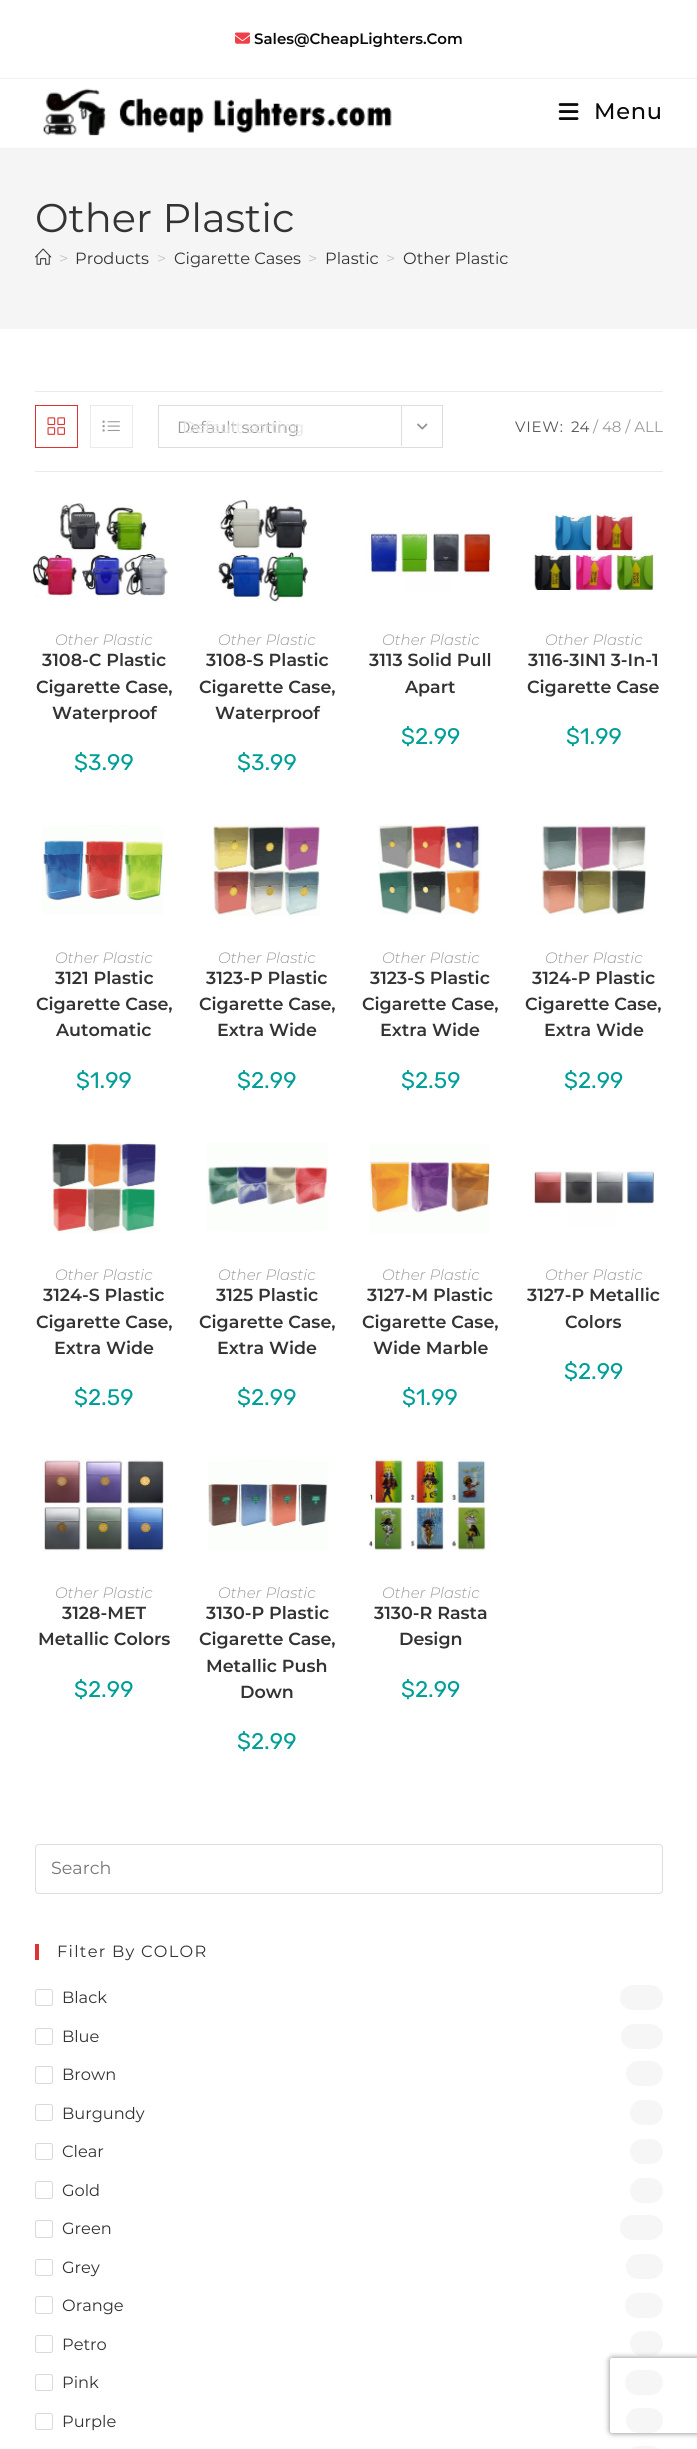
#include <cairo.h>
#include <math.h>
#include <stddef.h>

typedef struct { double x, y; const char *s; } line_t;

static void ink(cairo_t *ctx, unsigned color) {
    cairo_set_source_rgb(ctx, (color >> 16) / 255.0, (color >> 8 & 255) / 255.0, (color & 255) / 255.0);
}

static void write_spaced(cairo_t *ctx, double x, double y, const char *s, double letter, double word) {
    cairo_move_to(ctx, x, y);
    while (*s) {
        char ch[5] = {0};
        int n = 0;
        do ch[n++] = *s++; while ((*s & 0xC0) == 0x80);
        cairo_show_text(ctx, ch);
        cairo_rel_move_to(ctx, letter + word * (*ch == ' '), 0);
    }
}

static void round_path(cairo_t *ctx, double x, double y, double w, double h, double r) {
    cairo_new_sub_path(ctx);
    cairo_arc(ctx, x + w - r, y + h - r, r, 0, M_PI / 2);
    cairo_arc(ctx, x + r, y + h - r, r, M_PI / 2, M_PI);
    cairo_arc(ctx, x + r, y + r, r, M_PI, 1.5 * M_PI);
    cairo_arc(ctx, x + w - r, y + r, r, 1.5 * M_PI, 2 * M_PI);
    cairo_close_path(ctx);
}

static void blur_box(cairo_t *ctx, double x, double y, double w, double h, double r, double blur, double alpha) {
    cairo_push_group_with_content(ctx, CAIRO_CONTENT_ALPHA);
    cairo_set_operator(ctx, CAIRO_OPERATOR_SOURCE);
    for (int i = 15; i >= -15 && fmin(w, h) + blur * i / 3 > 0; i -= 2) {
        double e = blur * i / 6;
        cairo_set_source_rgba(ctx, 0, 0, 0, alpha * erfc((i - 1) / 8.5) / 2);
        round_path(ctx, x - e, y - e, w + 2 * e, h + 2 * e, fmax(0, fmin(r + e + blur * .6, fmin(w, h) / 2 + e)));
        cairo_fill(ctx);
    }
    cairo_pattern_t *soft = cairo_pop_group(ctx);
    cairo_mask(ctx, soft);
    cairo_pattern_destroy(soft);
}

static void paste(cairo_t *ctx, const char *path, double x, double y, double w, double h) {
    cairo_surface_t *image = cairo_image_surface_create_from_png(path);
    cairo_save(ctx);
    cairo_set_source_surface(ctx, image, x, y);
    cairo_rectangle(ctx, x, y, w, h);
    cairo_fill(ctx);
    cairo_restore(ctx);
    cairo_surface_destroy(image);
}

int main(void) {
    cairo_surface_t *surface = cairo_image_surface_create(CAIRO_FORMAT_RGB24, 697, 2449);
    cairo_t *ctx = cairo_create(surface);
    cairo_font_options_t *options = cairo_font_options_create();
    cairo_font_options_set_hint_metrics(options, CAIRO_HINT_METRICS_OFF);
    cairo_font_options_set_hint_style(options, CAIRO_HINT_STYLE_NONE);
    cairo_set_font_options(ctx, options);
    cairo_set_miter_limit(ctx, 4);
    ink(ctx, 0xFFFFFF);
    cairo_paint(ctx);
    ink(ctx, 0xF1F1F1);
    cairo_rectangle(ctx, 0, 78, 697, 1);
    cairo_fill(ctx);
    paste(ctx, "media/1.png", 235, 32, 15, 12);
    cairo_select_font_face(ctx, "Montserrat SemiBold", CAIRO_FONT_SLANT_NORMAL, CAIRO_FONT_WEIGHT_NORMAL);
    cairo_set_font_size(ctx, 15);
    ink(ctx, 0x0A0A0A);
    cairo_move_to(ctx, 254, 44);
    cairo_show_text(ctx, "Sales@CheapLighters.Com");
    ink(ctx, 0xF1F1F1);
    cairo_rectangle(ctx, 0, 148, 697, 1);
    cairo_fill(ctx);
    paste(ctx, "media/2.png", 43, 88, 349, 48);
    paste(ctx, "media/3.png", 558, 103, 21, 17);
    cairo_select_font_face(ctx, "Montserrat Medium", CAIRO_FONT_SLANT_NORMAL, CAIRO_FONT_WEIGHT_NORMAL);
    cairo_set_font_size(ctx, 22.5);
    ink(ctx, 0x0A0A0A);
    write_spaced(ctx, 594, 119, "Menu", 0.75, 0);
    ink(ctx, 0xF5F5F5);
    cairo_rectangle(ctx, 0, 149, 697, 180);
    cairo_fill(ctx);
    cairo_select_font_face(ctx, "Montserrat", CAIRO_FONT_SLANT_NORMAL, CAIRO_FONT_WEIGHT_NORMAL);
    cairo_set_font_size(ctx, 40);
    ink(ctx, 0x333333);
    cairo_move_to(ctx, 35, 232);
    cairo_show_text(ctx, "Other Plastic");
    paste(ctx, "media/4.png", 35, 248, 17, 17);
    cairo_set_font_size(ctx, 16.25);
    ink(ctx, 0xC6C6C6);
    cairo_move_to(ctx, 59, 264);
    cairo_show_text(ctx, ">");
    ink(ctx, 0x333333);
    cairo_move_to(ctx, 75, 264);
    cairo_show_text(ctx, "Products");
    ink(ctx, 0xC6C6C6);
    cairo_move_to(ctx, 157, 264);
    cairo_show_text(ctx, ">");
    ink(ctx, 0x333333);
    cairo_move_to(ctx, 174, 264);
    cairo_show_text(ctx, "Cigarette Cases");
    ink(ctx, 0xC6C6C6);
    cairo_move_to(ctx, 308, 264);
    cairo_show_text(ctx, ">");
    ink(ctx, 0x333333);
    cairo_move_to(ctx, 325, 264);
    cairo_show_text(ctx, "Plastic");
    ink(ctx, 0xC6C6C6);
    cairo_move_to(ctx, 386, 264);
    cairo_show_text(ctx, ">");
    ink(ctx, 0x333333);
    cairo_move_to(ctx, 403, 264);
    cairo_show_text(ctx, "Other Plastic");
    ink(ctx, 0xEAEAEA);
    cairo_rectangle(ctx, 35, 391, 628, 1);
    cairo_fill(ctx);
    cairo_rectangle(ctx, 35, 471, 628, 1);
    cairo_fill(ctx);
    cairo_rectangle(ctx, 35.5, 405.5, 42, 42);
    ink(ctx, 0xDD3333);
    cairo_set_line_width(ctx, 1);
    cairo_stroke(ctx);
    paste(ctx, "media/5.png", 47, 417, 18, 18);
    cairo_rectangle(ctx, 90.5, 405.5, 42, 42);
    ink(ctx, 0xEAEAEA);
    cairo_stroke(ctx);
    paste(ctx, "media/6.png", 102, 420, 18, 12);
    cairo_rectangle(ctx, 158.5, 405.5, 284, 42);
    ink(ctx, 0xDDDDDD);
    cairo_stroke(ctx);
    ink(ctx, 0x999999);
    cairo_move_to(ctx, 177, 433);
    cairo_show_text(ctx, "Default sorting");
    ink(ctx, 0xDDDDDD);
    cairo_rectangle(ctx, 401, 406, 1, 40);
    cairo_fill(ctx);
    paste(ctx, "media/7.png", 417, 423, 11, 7);
    ink(ctx, 0xE5E5E5);
    cairo_move_to(ctx, 182, 433);
    cairo_show_text(ctx, "Default sorting");
    cairo_set_font_size(ctx, 15);
    ink(ctx, 0x555555);
    write_spaced(ctx, 515, 432, "VIEW:", 0.75, 0);
    cairo_move_to(ctx, 571, 432);
    cairo_show_text(ctx, "24");
    ink(ctx, 0x999999);
    cairo_move_to(ctx, 593, 432);
    cairo_show_text(ctx, "/ 48 / ALL");
    paste(ctx, "media/8.png", 33, 503, 135, 96);
    cairo_select_font_face(ctx, "Montserrat Light", CAIRO_FONT_SLANT_ITALIC, CAIRO_FONT_WEIGHT_NORMAL);
    cairo_move_to(ctx, 55, 645);
    cairo_show_text(ctx, "Other Plastic");
    cairo_select_font_face(ctx, "Montserrat SemiBold", CAIRO_FONT_SLANT_NORMAL, CAIRO_FONT_WEIGHT_NORMAL);
    cairo_set_font_size(ctx, 17.5);
    ink(ctx, 0x333333);
    {
        static const line_t items[] = {
            {42, 666, "3108-C Plastic"},
            {36, 693, "Cigarette Case,"},
            {52, 719, "Waterproof"},
        };
        for (size_t i = 0; i < sizeof items / sizeof *items; i++) {
            cairo_move_to(ctx, items[i].x, items[i].y);
            cairo_show_text(ctx, items[i].s);
        }
    }
    cairo_select_font_face(ctx, "Rubik", CAIRO_FONT_SLANT_NORMAL, CAIRO_FONT_WEIGHT_NORMAL);
    cairo_set_font_size(ctx, 22.5);
    ink(ctx, 0x009E98);
    cairo_move_to(ctx, 74, 770);
    cairo_show_text(ctx, "$3.99");
    paste(ctx, "media/9.png", 218, 500, 93, 106);
    cairo_select_font_face(ctx, "Montserrat Light", CAIRO_FONT_SLANT_ITALIC, CAIRO_FONT_WEIGHT_NORMAL);
    cairo_set_font_size(ctx, 15);
    ink(ctx, 0x999999);
    cairo_move_to(ctx, 218, 645);
    cairo_show_text(ctx, "Other Plastic");
    cairo_select_font_face(ctx, "Montserrat SemiBold", CAIRO_FONT_SLANT_NORMAL, CAIRO_FONT_WEIGHT_NORMAL);
    cairo_set_font_size(ctx, 17.5);
    ink(ctx, 0x333333);
    {
        static const line_t items[] = {
            {206, 666, "3108-S Plastic"},
            {199, 693, "Cigarette Case,"},
            {215, 719, "Waterproof"},
        };
        for (size_t i = 0; i < sizeof items / sizeof *items; i++) {
            cairo_move_to(ctx, items[i].x, items[i].y);
            cairo_show_text(ctx, items[i].s);
        }
    }
    cairo_select_font_face(ctx, "Rubik", CAIRO_FONT_SLANT_NORMAL, CAIRO_FONT_WEIGHT_NORMAL);
    cairo_set_font_size(ctx, 22.5);
    ink(ctx, 0x009E98);
    cairo_move_to(ctx, 237, 770);
    cairo_show_text(ctx, "$3.99");
    paste(ctx, "media/10.png", 364, 505, 127, 94);
    cairo_select_font_face(ctx, "Montserrat Light", CAIRO_FONT_SLANT_ITALIC, CAIRO_FONT_WEIGHT_NORMAL);
    cairo_set_font_size(ctx, 15);
    ink(ctx, 0x999999);
    cairo_move_to(ctx, 382, 645);
    cairo_show_text(ctx, "Other Plastic");
    cairo_select_font_face(ctx, "Montserrat SemiBold", CAIRO_FONT_SLANT_NORMAL, CAIRO_FONT_WEIGHT_NORMAL);
    cairo_set_font_size(ctx, 17.5);
    ink(ctx, 0x333333);
    cairo_move_to(ctx, 369, 666);
    cairo_show_text(ctx, "3113 Solid Pull");
    cairo_move_to(ctx, 405, 693);
    cairo_show_text(ctx, "Apart");
    cairo_select_font_face(ctx, "Rubik", CAIRO_FONT_SLANT_NORMAL, CAIRO_FONT_WEIGHT_NORMAL);
    cairo_set_font_size(ctx, 22.5);
    ink(ctx, 0x009E98);
    cairo_move_to(ctx, 401, 744);
    cairo_show_text(ctx, "$2.99");
    paste(ctx, "media/11.png", 534, 505, 120, 95);
    cairo_select_font_face(ctx, "Montserrat Light", CAIRO_FONT_SLANT_ITALIC, CAIRO_FONT_WEIGHT_NORMAL);
    cairo_set_font_size(ctx, 15);
    ink(ctx, 0x999999);
    cairo_move_to(ctx, 545, 645);
    cairo_show_text(ctx, "Other Plastic");
    cairo_select_font_face(ctx, "Montserrat SemiBold", CAIRO_FONT_SLANT_NORMAL, CAIRO_FONT_WEIGHT_NORMAL);
    cairo_set_font_size(ctx, 17.5);
    ink(ctx, 0x333333);
    cairo_move_to(ctx, 528, 666);
    cairo_show_text(ctx, "3116-3IN1 3-In-1");
    cairo_move_to(ctx, 527, 693);
    cairo_show_text(ctx, "Cigarette Case");
    cairo_select_font_face(ctx, "Rubik", CAIRO_FONT_SLANT_NORMAL, CAIRO_FONT_WEIGHT_NORMAL);
    cairo_set_font_size(ctx, 22.5);
    ink(ctx, 0x009E98);
    cairo_move_to(ctx, 566, 744);
    cairo_show_text(ctx, "$1.99");
    paste(ctx, "media/12.png", 73, 825, 61, 1);
    paste(ctx, "media/13.png", 42, 826, 121, 89);
    cairo_select_font_face(ctx, "Montserrat Light", CAIRO_FONT_SLANT_ITALIC, CAIRO_FONT_WEIGHT_NORMAL);
    cairo_set_font_size(ctx, 15);
    ink(ctx, 0x999999);
    cairo_move_to(ctx, 55, 963);
    cairo_show_text(ctx, "Other Plastic");
    cairo_select_font_face(ctx, "Montserrat SemiBold", CAIRO_FONT_SLANT_NORMAL, CAIRO_FONT_WEIGHT_NORMAL);
    cairo_set_font_size(ctx, 17.5);
    ink(ctx, 0x333333);
    {
        static const line_t items[] = {
            {55, 984, "3121 Plastic"},
            {36, 1010, "Cigarette Case,"},
            {56, 1036, "Automatic"},
        };
        for (size_t i = 0; i < sizeof items / sizeof *items; i++) {
            cairo_move_to(ctx, items[i].x, items[i].y);
            cairo_show_text(ctx, items[i].s);
        }
    }
    cairo_select_font_face(ctx, "Rubik", CAIRO_FONT_SLANT_NORMAL, CAIRO_FONT_WEIGHT_NORMAL);
    cairo_set_font_size(ctx, 22.5);
    ink(ctx, 0x009E98);
    cairo_move_to(ctx, 76, 1088);
    cairo_show_text(ctx, "$1.99");
    paste(ctx, "media/14.png", 213, 824, 107, 92);
    cairo_select_font_face(ctx, "Montserrat Light", CAIRO_FONT_SLANT_ITALIC, CAIRO_FONT_WEIGHT_NORMAL);
    cairo_set_font_size(ctx, 15);
    ink(ctx, 0x999999);
    cairo_move_to(ctx, 218, 963);
    cairo_show_text(ctx, "Other Plastic");
    cairo_select_font_face(ctx, "Montserrat SemiBold", CAIRO_FONT_SLANT_NORMAL, CAIRO_FONT_WEIGHT_NORMAL);
    cairo_set_font_size(ctx, 17.5);
    ink(ctx, 0x333333);
    {
        static const line_t items[] = {
            {206, 984, "3123-P Plastic"},
            {199, 1010, "Cigarette Case,"},
            {217, 1036, "Extra Wide"},
        };
        for (size_t i = 0; i < sizeof items / sizeof *items; i++) {
            cairo_move_to(ctx, items[i].x, items[i].y);
            cairo_show_text(ctx, items[i].s);
        }
    }
    cairo_select_font_face(ctx, "Rubik", CAIRO_FONT_SLANT_NORMAL, CAIRO_FONT_WEIGHT_NORMAL);
    cairo_set_font_size(ctx, 22.5);
    ink(ctx, 0x009E98);
    cairo_move_to(ctx, 237, 1088);
    cairo_show_text(ctx, "$2.99");
    paste(ctx, "media/15.png", 378, 824, 103, 91);
    cairo_select_font_face(ctx, "Montserrat Light", CAIRO_FONT_SLANT_ITALIC, CAIRO_FONT_WEIGHT_NORMAL);
    cairo_set_font_size(ctx, 15);
    ink(ctx, 0x999999);
    cairo_move_to(ctx, 382, 963);
    cairo_show_text(ctx, "Other Plastic");
    cairo_select_font_face(ctx, "Montserrat SemiBold", CAIRO_FONT_SLANT_NORMAL, CAIRO_FONT_WEIGHT_NORMAL);
    cairo_set_font_size(ctx, 17.5);
    ink(ctx, 0x333333);
    {
        static const line_t items[] = {
            {370, 984, "3123-S Plastic"},
            {362, 1010, "Cigarette Case,"},
            {380, 1036, "Extra Wide"},
        };
        for (size_t i = 0; i < sizeof items / sizeof *items; i++) {
            cairo_move_to(ctx, items[i].x, items[i].y);
            cairo_show_text(ctx, items[i].s);
        }
    }
    cairo_select_font_face(ctx, "Rubik", CAIRO_FONT_SLANT_NORMAL, CAIRO_FONT_WEIGHT_NORMAL);
    cairo_set_font_size(ctx, 22.5);
    ink(ctx, 0x009E98);
    cairo_move_to(ctx, 401, 1088);
    cairo_show_text(ctx, "$2.59");
    paste(ctx, "media/16.png", 558, 824, 71, 1);
    paste(ctx, "media/17.png", 542, 825, 104, 90);
    cairo_select_font_face(ctx, "Montserrat Light", CAIRO_FONT_SLANT_ITALIC, CAIRO_FONT_WEIGHT_NORMAL);
    cairo_set_font_size(ctx, 15);
    ink(ctx, 0x999999);
    cairo_move_to(ctx, 545, 963);
    cairo_show_text(ctx, "Other Plastic");
    cairo_select_font_face(ctx, "Montserrat SemiBold", CAIRO_FONT_SLANT_NORMAL, CAIRO_FONT_WEIGHT_NORMAL);
    cairo_set_font_size(ctx, 17.5);
    ink(ctx, 0x333333);
    {
        static const line_t items[] = {
            {532, 984, "3124-P Plastic"},
            {525, 1010, "Cigarette Case,"},
            {544, 1036, "Extra Wide"},
        };
        for (size_t i = 0; i < sizeof items / sizeof *items; i++) {
            cairo_move_to(ctx, items[i].x, items[i].y);
            cairo_show_text(ctx, items[i].s);
        }
    }
    cairo_select_font_face(ctx, "Rubik", CAIRO_FONT_SLANT_NORMAL, CAIRO_FONT_WEIGHT_NORMAL);
    cairo_set_font_size(ctx, 22.5);
    ink(ctx, 0x009E98);
    cairo_move_to(ctx, 564, 1088);
    cairo_show_text(ctx, "$2.99");
    paste(ctx, "media/18.png", 52, 1142, 104, 91);
    cairo_select_font_face(ctx, "Montserrat Light", CAIRO_FONT_SLANT_ITALIC, CAIRO_FONT_WEIGHT_NORMAL);
    cairo_set_font_size(ctx, 15);
    ink(ctx, 0x999999);
    cairo_move_to(ctx, 55, 1280);
    cairo_show_text(ctx, "Other Plastic");
    cairo_select_font_face(ctx, "Montserrat SemiBold", CAIRO_FONT_SLANT_NORMAL, CAIRO_FONT_WEIGHT_NORMAL);
    cairo_set_font_size(ctx, 17.5);
    ink(ctx, 0x333333);
    {
        static const line_t items[] = {
            {43, 1301, "3124-S Plastic"},
            {36, 1328, "Cigarette Case,"},
            {54, 1354, "Extra Wide"},
        };
        for (size_t i = 0; i < sizeof items / sizeof *items; i++) {
            cairo_move_to(ctx, items[i].x, items[i].y);
            cairo_show_text(ctx, items[i].s);
        }
    }
    cairo_select_font_face(ctx, "Rubik", CAIRO_FONT_SLANT_NORMAL, CAIRO_FONT_WEIGHT_NORMAL);
    cairo_set_font_size(ctx, 22.5);
    ink(ctx, 0x009E98);
    cairo_move_to(ctx, 74, 1405);
    cairo_show_text(ctx, "$2.59");
    paste(ctx, "media/19.png", 207, 1143, 121, 88);
    paste(ctx, "media/20.png", 235, 1231, 73, 1);
    cairo_select_font_face(ctx, "Montserrat Light", CAIRO_FONT_SLANT_ITALIC, CAIRO_FONT_WEIGHT_NORMAL);
    cairo_set_font_size(ctx, 15);
    ink(ctx, 0x999999);
    cairo_move_to(ctx, 218, 1280);
    cairo_show_text(ctx, "Other Plastic");
    cairo_select_font_face(ctx, "Montserrat SemiBold", CAIRO_FONT_SLANT_NORMAL, CAIRO_FONT_WEIGHT_NORMAL);
    cairo_set_font_size(ctx, 17.5);
    ink(ctx, 0x333333);
    {
        static const line_t items[] = {
            {216, 1301, "3125 Plastic"},
            {199, 1328, "Cigarette Case,"},
            {217, 1354, "Extra Wide"},
        };
        for (size_t i = 0; i < sizeof items / sizeof *items; i++) {
            cairo_move_to(ctx, items[i].x, items[i].y);
            cairo_show_text(ctx, items[i].s);
        }
    }
    cairo_select_font_face(ctx, "Rubik", CAIRO_FONT_SLANT_NORMAL, CAIRO_FONT_WEIGHT_NORMAL);
    cairo_set_font_size(ctx, 22.5);
    ink(ctx, 0x009E98);
    cairo_move_to(ctx, 237, 1405);
    cairo_show_text(ctx, "$2.99");
    paste(ctx, "media/21.png", 369, 1144, 121, 89);
    cairo_select_font_face(ctx, "Montserrat Light", CAIRO_FONT_SLANT_ITALIC, CAIRO_FONT_WEIGHT_NORMAL);
    cairo_set_font_size(ctx, 15);
    ink(ctx, 0x999999);
    cairo_move_to(ctx, 382, 1280);
    cairo_show_text(ctx, "Other Plastic");
    cairo_select_font_face(ctx, "Montserrat SemiBold", CAIRO_FONT_SLANT_NORMAL, CAIRO_FONT_WEIGHT_NORMAL);
    cairo_set_font_size(ctx, 17.5);
    ink(ctx, 0x333333);
    {
        static const line_t items[] = {
            {367, 1301, "3127-M Plastic"},
            {362, 1328, "Cigarette Case,"},
            {373, 1354, "Wide Marble"},
        };
        for (size_t i = 0; i < sizeof items / sizeof *items; i++) {
            cairo_move_to(ctx, items[i].x, items[i].y);
            cairo_show_text(ctx, items[i].s);
        }
    }
    cairo_select_font_face(ctx, "Rubik", CAIRO_FONT_SLANT_NORMAL, CAIRO_FONT_WEIGHT_NORMAL);
    cairo_set_font_size(ctx, 22.5);
    ink(ctx, 0x009E98);
    cairo_move_to(ctx, 402, 1405);
    cairo_show_text(ctx, "$1.99");
    paste(ctx, "media/22.png", 529, 1141, 125, 93);
    cairo_select_font_face(ctx, "Montserrat Light", CAIRO_FONT_SLANT_ITALIC, CAIRO_FONT_WEIGHT_NORMAL);
    cairo_set_font_size(ctx, 15);
    ink(ctx, 0x999999);
    cairo_move_to(ctx, 545, 1280);
    cairo_show_text(ctx, "Other Plastic");
    cairo_select_font_face(ctx, "Montserrat SemiBold", CAIRO_FONT_SLANT_NORMAL, CAIRO_FONT_WEIGHT_NORMAL);
    cairo_set_font_size(ctx, 17.5);
    ink(ctx, 0x333333);
    cairo_move_to(ctx, 527, 1301);
    cairo_show_text(ctx, "3127-P Metallic");
    cairo_move_to(ctx, 565, 1328);
    cairo_show_text(ctx, "Colors");
    cairo_select_font_face(ctx, "Rubik", CAIRO_FONT_SLANT_NORMAL, CAIRO_FONT_WEIGHT_NORMAL);
    cairo_set_font_size(ctx, 22.5);
    ink(ctx, 0x009E98);
    cairo_move_to(ctx, 564, 1379);
    cairo_show_text(ctx, "$2.99");
    paste(ctx, "media/23.png", 42, 1458, 122, 94);
    cairo_select_font_face(ctx, "Montserrat Light", CAIRO_FONT_SLANT_ITALIC, CAIRO_FONT_WEIGHT_NORMAL);
    cairo_set_font_size(ctx, 15);
    ink(ctx, 0x999999);
    cairo_move_to(ctx, 55, 1598);
    cairo_show_text(ctx, "Other Plastic");
    cairo_select_font_face(ctx, "Montserrat SemiBold", CAIRO_FONT_SLANT_NORMAL, CAIRO_FONT_WEIGHT_NORMAL);
    cairo_set_font_size(ctx, 17.5);
    ink(ctx, 0x333333);
    cairo_move_to(ctx, 62, 1619);
    cairo_show_text(ctx, "3128-MET");
    cairo_move_to(ctx, 38, 1645);
    cairo_show_text(ctx, "Metallic Colors");
    cairo_select_font_face(ctx, "Rubik", CAIRO_FONT_SLANT_NORMAL, CAIRO_FONT_WEIGHT_NORMAL);
    cairo_set_font_size(ctx, 22.5);
    ink(ctx, 0x009E98);
    cairo_move_to(ctx, 74, 1697);
    cairo_show_text(ctx, "$2.99");
    paste(ctx, "media/24.png", 238, 1460, 59, 1);
    paste(ctx, "media/25.png", 208, 1461, 120, 89);
    cairo_select_font_face(ctx, "Montserrat Light", CAIRO_FONT_SLANT_ITALIC, CAIRO_FONT_WEIGHT_NORMAL);
    cairo_set_font_size(ctx, 15);
    ink(ctx, 0x999999);
    cairo_move_to(ctx, 218, 1598);
    cairo_show_text(ctx, "Other Plastic");
    cairo_select_font_face(ctx, "Montserrat SemiBold", CAIRO_FONT_SLANT_NORMAL, CAIRO_FONT_WEIGHT_NORMAL);
    cairo_set_font_size(ctx, 17.5);
    ink(ctx, 0x333333);
    {
        static const line_t items[] = {
            {206, 1619, "3130-P Plastic"},
            {199, 1645, "Cigarette Case,"},
            {206, 1672, "Metallic Push"},
            {240, 1698, "Down"},
        };
        for (size_t i = 0; i < sizeof items / sizeof *items; i++) {
            cairo_move_to(ctx, items[i].x, items[i].y);
            cairo_show_text(ctx, items[i].s);
        }
    }
    cairo_select_font_face(ctx, "Rubik", CAIRO_FONT_SLANT_NORMAL, CAIRO_FONT_WEIGHT_NORMAL);
    cairo_set_font_size(ctx, 22.5);
    ink(ctx, 0x009E98);
    cairo_move_to(ctx, 237, 1749);
    cairo_show_text(ctx, "$2.99");
    paste(ctx, "media/26.png", 368, 1458, 122, 94);
    cairo_select_font_face(ctx, "Montserrat Light", CAIRO_FONT_SLANT_ITALIC, CAIRO_FONT_WEIGHT_NORMAL);
    cairo_set_font_size(ctx, 15);
    ink(ctx, 0x999999);
    cairo_move_to(ctx, 382, 1598);
    cairo_show_text(ctx, "Other Plastic");
    cairo_select_font_face(ctx, "Montserrat SemiBold", CAIRO_FONT_SLANT_NORMAL, CAIRO_FONT_WEIGHT_NORMAL);
    cairo_set_font_size(ctx, 17.5);
    ink(ctx, 0x333333);
    cairo_move_to(ctx, 374, 1619);
    cairo_show_text(ctx, "3130-R Rasta");
    cairo_move_to(ctx, 399, 1645);
    cairo_show_text(ctx, "Design");
    cairo_select_font_face(ctx, "Rubik", CAIRO_FONT_SLANT_NORMAL, CAIRO_FONT_WEIGHT_NORMAL);
    cairo_set_font_size(ctx, 22.5);
    ink(ctx, 0x009E98);
    cairo_move_to(ctx, 401, 1697);
    cairo_show_text(ctx, "$2.99");
    round_path(ctx, 35.5, 1844.5, 627, 49, 3.5);
    ink(ctx, 0xDDDDDD);
    cairo_stroke(ctx);
    cairo_select_font_face(ctx, "Montserrat", CAIRO_FONT_SLANT_NORMAL, CAIRO_FONT_WEIGHT_NORMAL);
    cairo_set_font_size(ctx, 17.5);
    ink(ctx, 0x757575);
    cairo_move_to(ctx, 51, 1874);
    cairo_show_text(ctx, "Search");
    ink(ctx, 0xDD3333);
    cairo_rectangle(ctx, 35, 1944, 4, 16);
    cairo_fill(ctx);
    cairo_set_font_size(ctx, 16.25);
    ink(ctx, 0x333333);
    write_spaced(ctx, 57, 1957, "Filter By COLOR", 1.25, 0);
    round_path(ctx, 35.5, 1989.5, 17, 16, 2);
    ink(ctx, 0xD9D9D9);
    cairo_stroke(ctx);
    ink(ctx, 0x333333);
    cairo_move_to(ctx, 62, 2003);
    cairo_show_text(ctx, "Black");
    ink(ctx, 0xF6F6F6);
    round_path(ctx, 620, 1985, 43, 25, 12.5);
    cairo_fill(ctx);
    round_path(ctx, 35.5, 2028.5, 17, 16, 2);
    ink(ctx, 0xD9D9D9);
    cairo_stroke(ctx);
    ink(ctx, 0x333333);
    cairo_move_to(ctx, 62, 2042);
    cairo_show_text(ctx, "Blue");
    ink(ctx, 0xF6F6F6);
    round_path(ctx, 621, 2024, 42, 25, 12.5);
    cairo_fill(ctx);
    round_path(ctx, 35.5, 2066.5, 17, 17, 2);
    ink(ctx, 0xD9D9D9);
    cairo_stroke(ctx);
    ink(ctx, 0x333333);
    cairo_move_to(ctx, 62, 2080);
    cairo_show_text(ctx, "Brown");
    ink(ctx, 0xF6F6F6);
    round_path(ctx, 626, 2061, 37, 25, 12.5);
    cairo_fill(ctx);
    round_path(ctx, 35.5, 2104.5, 17, 16, 2);
    ink(ctx, 0xD9D9D9);
    cairo_stroke(ctx);
    ink(ctx, 0x333333);
    cairo_move_to(ctx, 62, 2119);
    cairo_show_text(ctx, "Burgundy");
    ink(ctx, 0xF6F6F6);
    round_path(ctx, 630, 2100, 33, 25, 12.5);
    cairo_fill(ctx);
    round_path(ctx, 35.5, 2143.5, 17, 16, 2);
    ink(ctx, 0xD9D9D9);
    cairo_stroke(ctx);
    ink(ctx, 0x333333);
    cairo_move_to(ctx, 62, 2157);
    cairo_show_text(ctx, "Clear");
    ink(ctx, 0xF6F6F6);
    round_path(ctx, 630, 2139, 33, 25, 12.5);
    cairo_fill(ctx);
    round_path(ctx, 35.5, 2181.5, 17, 17, 2);
    ink(ctx, 0xD9D9D9);
    cairo_stroke(ctx);
    ink(ctx, 0x333333);
    cairo_move_to(ctx, 62, 2196);
    cairo_show_text(ctx, "Gold");
    ink(ctx, 0xF6F6F6);
    round_path(ctx, 630, 2178, 33, 25, 12.5);
    cairo_fill(ctx);
    round_path(ctx, 35.5, 2220.5, 17, 17, 2);
    ink(ctx, 0xD9D9D9);
    cairo_stroke(ctx);
    ink(ctx, 0x333333);
    cairo_move_to(ctx, 62, 2234);
    cairo_show_text(ctx, "Green");
    ink(ctx, 0xF6F6F6);
    round_path(ctx, 620, 2215, 43, 25, 12.5);
    cairo_fill(ctx);
    round_path(ctx, 35.5, 2259.5, 17, 16, 2);
    ink(ctx, 0xD9D9D9);
    cairo_stroke(ctx);
    ink(ctx, 0x333333);
    cairo_move_to(ctx, 62, 2273);
    cairo_show_text(ctx, "Grey");
    ink(ctx, 0xF6F6F6);
    round_path(ctx, 626, 2254, 37, 25, 12.5);
    cairo_fill(ctx);
    round_path(ctx, 35.5, 2296.5, 17, 17, 2);
    ink(ctx, 0xD9D9D9);
    cairo_stroke(ctx);
    ink(ctx, 0x333333);
    cairo_move_to(ctx, 62, 2311);
    cairo_show_text(ctx, "Orange");
    ink(ctx, 0xF6F6F6);
    round_path(ctx, 625, 2293, 38, 25, 12.5);
    cairo_fill(ctx);
    round_path(ctx, 35.5, 2335.5, 17, 17, 2);
    ink(ctx, 0xD9D9D9);
    cairo_stroke(ctx);
    ink(ctx, 0x333333);
    cairo_move_to(ctx, 62, 2350);
    cairo_show_text(ctx, "Petro");
    ink(ctx, 0xF6F6F6);
    round_path(ctx, 630, 2331, 33, 25, 12.5);
    cairo_fill(ctx);
    round_path(ctx, 35.5, 2374.5, 17, 16, 2);
    ink(ctx, 0xD9D9D9);
    cairo_stroke(ctx);
    ink(ctx, 0x333333);
    cairo_move_to(ctx, 62, 2388);
    cairo_show_text(ctx, "Pink");
    ink(ctx, 0xF6F6F6);
    round_path(ctx, 625, 2370, 38, 25, 12.5);
    cairo_fill(ctx);
    round_path(ctx, 35.5, 2413.5, 17, 16, 2);
    ink(ctx, 0xD9D9D9);
    cairo_stroke(ctx);
    ink(ctx, 0x333333);
    cairo_move_to(ctx, 62, 2427);
    cairo_show_text(ctx, "Purple");
    ink(ctx, 0xF6F6F6);
    round_path(ctx, 626, 2408, 37, 25, 12.5);
    cairo_fill(ctx);
    round_path(ctx, 626, 2446, 37, 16, 12.5);
    cairo_fill(ctx);
    cairo_save(ctx);
    cairo_set_fill_rule(ctx, CAIRO_FILL_RULE_EVEN_ODD);
    cairo_new_path(ctx);
    cairo_move_to(ctx, 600, 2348);
    cairo_line_to(ctx, 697, 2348);
    cairo_line_to(ctx, 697, 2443);
    cairo_line_to(ctx, 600, 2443);
    cairo_close_path(ctx);
    cairo_move_to(ctx, 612.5, 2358);
    cairo_line_to(ctx, 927.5, 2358);
    cairo_curve_to(ctx, 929, 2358, 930, 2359, 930, 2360.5);
    cairo_line_to(ctx, 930, 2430.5);
    cairo_curve_to(ctx, 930, 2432, 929, 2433, 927.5, 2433);
    cairo_line_to(ctx, 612.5, 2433);
    cairo_curve_to(ctx, 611, 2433, 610, 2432, 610, 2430.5);
    cairo_line_to(ctx, 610, 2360.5);
    cairo_curve_to(ctx, 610, 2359, 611, 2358, 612.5, 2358);
    cairo_close_path(ctx);
    cairo_clip(ctx);
    ink(ctx, 0x808080);
    blur_box(ctx, 610, 2358, 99, 75, 2.5, 3, 1);
    cairo_restore(ctx);
    cairo_surface_write_to_png(surface, "image.png");
    cairo_font_options_destroy(options);
    cairo_destroy(ctx);
    cairo_surface_destroy(surface);
    return 0;
}
